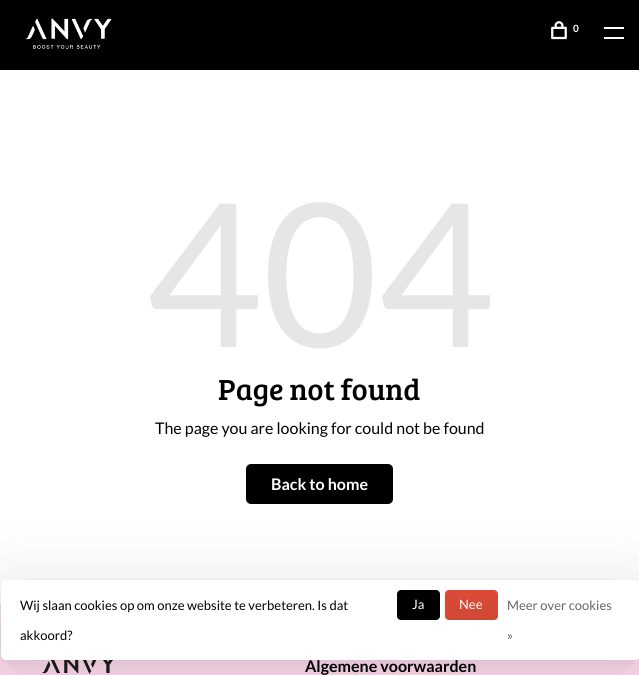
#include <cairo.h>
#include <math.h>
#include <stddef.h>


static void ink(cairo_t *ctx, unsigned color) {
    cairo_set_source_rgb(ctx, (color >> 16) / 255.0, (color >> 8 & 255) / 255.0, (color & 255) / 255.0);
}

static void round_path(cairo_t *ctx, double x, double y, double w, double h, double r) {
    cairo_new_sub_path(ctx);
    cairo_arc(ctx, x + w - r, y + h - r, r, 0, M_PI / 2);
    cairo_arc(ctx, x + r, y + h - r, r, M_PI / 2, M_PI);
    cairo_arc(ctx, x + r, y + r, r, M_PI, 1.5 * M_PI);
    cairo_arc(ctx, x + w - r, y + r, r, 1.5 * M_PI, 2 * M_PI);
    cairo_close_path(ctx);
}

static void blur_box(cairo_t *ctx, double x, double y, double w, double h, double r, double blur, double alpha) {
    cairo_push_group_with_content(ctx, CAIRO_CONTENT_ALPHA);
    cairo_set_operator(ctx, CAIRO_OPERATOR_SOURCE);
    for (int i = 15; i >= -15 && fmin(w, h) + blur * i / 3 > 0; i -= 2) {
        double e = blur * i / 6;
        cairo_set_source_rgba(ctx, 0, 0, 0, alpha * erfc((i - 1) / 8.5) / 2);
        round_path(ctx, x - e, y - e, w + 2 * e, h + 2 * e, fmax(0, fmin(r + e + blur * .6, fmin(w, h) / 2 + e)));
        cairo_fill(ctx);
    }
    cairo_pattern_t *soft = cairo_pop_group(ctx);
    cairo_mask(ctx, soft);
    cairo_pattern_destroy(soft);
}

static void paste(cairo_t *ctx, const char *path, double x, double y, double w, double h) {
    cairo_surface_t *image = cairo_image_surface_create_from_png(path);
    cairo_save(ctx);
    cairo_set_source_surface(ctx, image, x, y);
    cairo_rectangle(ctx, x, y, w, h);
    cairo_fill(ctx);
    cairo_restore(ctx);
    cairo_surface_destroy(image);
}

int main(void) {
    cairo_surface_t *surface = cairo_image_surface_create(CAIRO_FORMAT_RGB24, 639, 675);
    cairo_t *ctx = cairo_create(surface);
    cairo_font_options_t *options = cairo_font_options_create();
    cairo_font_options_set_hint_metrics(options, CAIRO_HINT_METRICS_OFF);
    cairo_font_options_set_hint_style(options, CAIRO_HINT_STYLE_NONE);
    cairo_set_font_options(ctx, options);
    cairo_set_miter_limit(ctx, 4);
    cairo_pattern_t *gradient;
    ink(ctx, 0xFFFFFF);
    cairo_paint(ctx);
    ink(ctx, 0x000000);
    cairo_rectangle(ctx, 0, 0, 639, 70);
    cairo_fill(ctx);
    paste(ctx, "media/1.png", 25, 18, 87, 31);
    paste(ctx, "media/2.png", 551, 21, 16, 19);
    cairo_select_font_face(ctx, "Lato", CAIRO_FONT_SLANT_NORMAL, CAIRO_FONT_WEIGHT_BOLD);
    cairo_set_font_size(ctx, 10);
    ink(ctx, 0xFFFFFF);
    cairo_move_to(ctx, 573, 32);
    cairo_show_text(ctx, "0");
    cairo_rectangle(ctx, 604, 27, 20, 2);
    cairo_fill(ctx);
    cairo_rectangle(ctx, 604, 37, 20, 2);
    cairo_fill(ctx);
    cairo_select_font_face(ctx, "Lato", CAIRO_FONT_SLANT_NORMAL, CAIRO_FONT_WEIGHT_NORMAL);
    cairo_set_font_size(ctx, 200);
    ink(ctx, 0xE6E6E6);
    cairo_move_to(ctx, 146, 347);
    cairo_show_text(ctx, "404");
    cairo_select_font_face(ctx, "Bree Serif", CAIRO_FONT_SLANT_NORMAL, CAIRO_FONT_WEIGHT_NORMAL);
    cairo_set_font_size(ctx, 30);
    ink(ctx, 0x000000);
    cairo_move_to(ctx, 218, 400);
    cairo_show_text(ctx, "Page not found");
    cairo_select_font_face(ctx, "Lato", CAIRO_FONT_SLANT_NORMAL, CAIRO_FONT_WEIGHT_NORMAL);
    cairo_set_font_size(ctx, 16);
    cairo_move_to(ctx, 155, 434);
    cairo_show_text(ctx, "The page you are looking for could not be found");
    round_path(ctx, 246, 464, 147, 40, 5);
    cairo_fill(ctx);
    cairo_select_font_face(ctx, "Lato", CAIRO_FONT_SLANT_NORMAL, CAIRO_FONT_WEIGHT_BOLD);
    ink(ctx, 0xFFFFFF);
    cairo_move_to(ctx, 271, 490);
    cairo_show_text(ctx, "Back to home");
    ink(ctx, 0xFFDCEF);
    cairo_rectangle(ctx, 0, 604, 639, 71);
    cairo_fill(ctx);
    paste(ctx, "media/3.png", 42, 660, 71, 14);
    ink(ctx, 0x000000);
    blur_box(ctx, 1, 586, 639, 80, 5, 7.5, 0.05);
    blur_box(ctx, 7, 600, 627, 68, 0, 43, 0.15);
    ink(ctx, 0xFFFFFF);
    round_path(ctx, 1, 580, 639, 80, 5);
    cairo_fill(ctx);
    cairo_select_font_face(ctx, "Lato", CAIRO_FONT_SLANT_NORMAL, CAIRO_FONT_WEIGHT_NORMAL);
    cairo_set_font_size(ctx, 13);
    ink(ctx, 0x000000);
    cairo_move_to(ctx, 20, 610);
    cairo_show_text(ctx, "Wij slaan cookies op om onze website te verbeteren. Is dat");
    round_path(ctx, 397, 590, 43, 30, 4);
    cairo_fill(ctx);
    ink(ctx, 0xFFFFFF);
    cairo_move_to(ctx, 412, 609);
    cairo_show_text(ctx, "Ja");
    gradient = cairo_pattern_create_linear(471, 590, 471, 620);
    cairo_pattern_add_color_stop_rgba(gradient, 0, 0.863, 0.29, 0.22, 1);
    cairo_pattern_add_color_stop_rgba(gradient, 1, 0.82, 0.282, 0.212, 1);
    cairo_set_source(ctx, gradient);
    cairo_pattern_destroy(gradient);
    round_path(ctx, 445, 590, 53, 30, 4);
    cairo_fill(ctx);
    ink(ctx, 0xFFFFFF);
    cairo_move_to(ctx, 459, 609);
    cairo_show_text(ctx, "Nee");
    ink(ctx, 0x666666);
    cairo_move_to(ctx, 507, 610);
    cairo_show_text(ctx, "Meer over cookies");
    cairo_move_to(ctx, 507, 640);
    cairo_show_text(ctx, "»");
    ink(ctx, 0x000000);
    cairo_move_to(ctx, 20, 640);
    cairo_show_text(ctx, "akkoord?");
    cairo_select_font_face(ctx, "Lato", CAIRO_FONT_SLANT_NORMAL, CAIRO_FONT_WEIGHT_BOLD);
    cairo_set_font_size(ctx, 16);
    cairo_move_to(ctx, 305, 672);
    cairo_show_text(ctx, "Algemene voorwaarden");
    cairo_surface_write_to_png(surface, "image.png");
    cairo_font_options_destroy(options);
    cairo_destroy(ctx);
    cairo_surface_destroy(surface);
    return 0;
}
